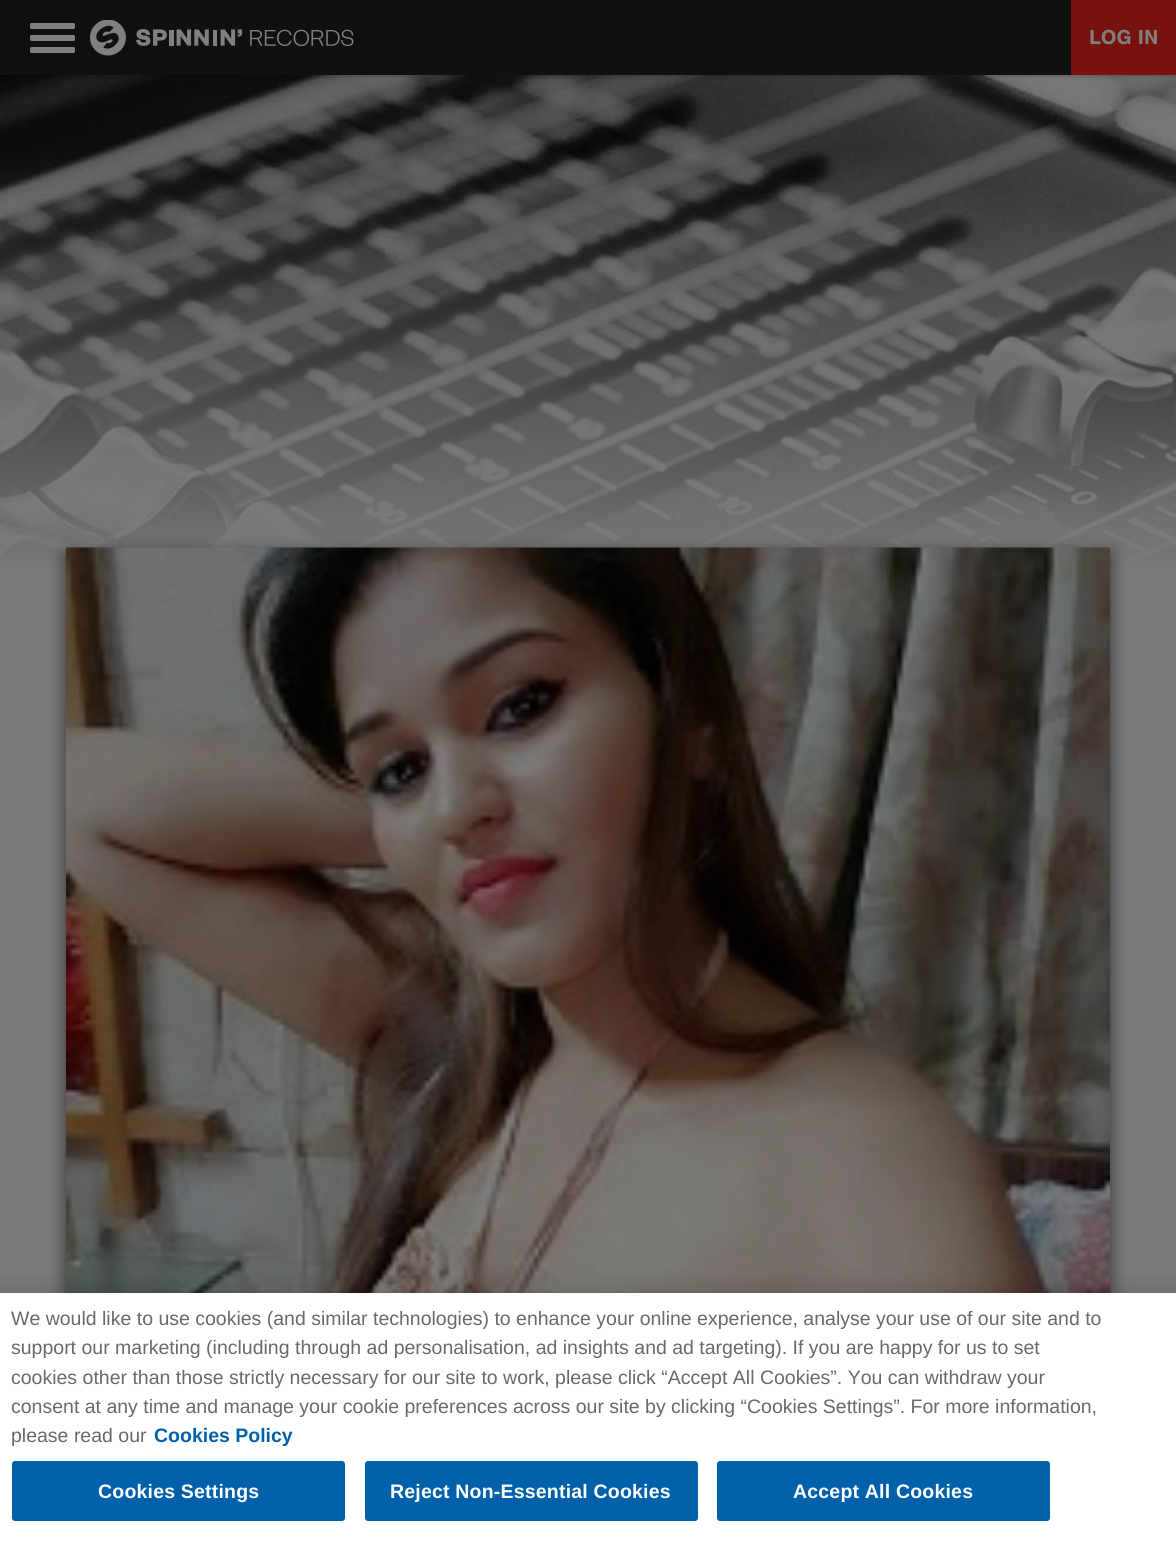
#include <cairo.h>
#include <math.h>
#include <stddef.h>

typedef struct { double x, y; const char *s; } line_t;

static void ink(cairo_t *ctx, unsigned color) {
    cairo_set_source_rgb(ctx, (color >> 16) / 255.0, (color >> 8 & 255) / 255.0, (color & 255) / 255.0);
}

static void write_spaced(cairo_t *ctx, double x, double y, const char *s, double letter, double word) {
    cairo_move_to(ctx, x, y);
    while (*s) {
        char ch[5] = {0};
        int n = 0;
        do ch[n++] = *s++; while ((*s & 0xC0) == 0x80);
        cairo_show_text(ctx, ch);
        cairo_rel_move_to(ctx, letter + word * (*ch == ' '), 0);
    }
}

static void round_path(cairo_t *ctx, double x, double y, double w, double h, double r) {
    cairo_new_sub_path(ctx);
    cairo_arc(ctx, x + w - r, y + h - r, r, 0, M_PI / 2);
    cairo_arc(ctx, x + r, y + h - r, r, M_PI / 2, M_PI);
    cairo_arc(ctx, x + r, y + r, r, M_PI, 1.5 * M_PI);
    cairo_arc(ctx, x + w - r, y + r, r, 1.5 * M_PI, 2 * M_PI);
    cairo_close_path(ctx);
}

static void blur_box(cairo_t *ctx, double x, double y, double w, double h, double r, double blur, double alpha) {
    cairo_push_group_with_content(ctx, CAIRO_CONTENT_ALPHA);
    cairo_set_operator(ctx, CAIRO_OPERATOR_SOURCE);
    for (int i = 15; i >= -15 && fmin(w, h) + blur * i / 3 > 0; i -= 2) {
        double e = blur * i / 6;
        cairo_set_source_rgba(ctx, 0, 0, 0, alpha * erfc((i - 1) / 8.5) / 2);
        round_path(ctx, x - e, y - e, w + 2 * e, h + 2 * e, fmax(0, fmin(r + e + blur * .6, fmin(w, h) / 2 + e)));
        cairo_fill(ctx);
    }
    cairo_pattern_t *soft = cairo_pop_group(ctx);
    cairo_mask(ctx, soft);
    cairo_pattern_destroy(soft);
}

static void paste(cairo_t *ctx, const char *path, double x, double y, double w, double h) {
    cairo_surface_t *image = cairo_image_surface_create_from_png(path);
    cairo_save(ctx);
    cairo_set_source_surface(ctx, image, x, y);
    cairo_rectangle(ctx, x, y, w, h);
    cairo_fill(ctx);
    cairo_restore(ctx);
    cairo_surface_destroy(image);
}

int main(void) {
    cairo_surface_t *surface = cairo_image_surface_create(CAIRO_FORMAT_RGB24, 1176, 1544);
    cairo_t *ctx = cairo_create(surface);
    cairo_font_options_t *options = cairo_font_options_create();
    cairo_font_options_set_hint_metrics(options, CAIRO_HINT_METRICS_OFF);
    cairo_font_options_set_hint_style(options, CAIRO_HINT_STYLE_NONE);
    cairo_set_font_options(ctx, options);
    cairo_set_miter_limit(ctx, 4);
    ink(ctx, 0x7A7A7A);
    cairo_paint(ctx);
    paste(ctx, "media/2.png", 0, 75, 1176, 525);
    ink(ctx, 0x000000);
    blur_box(ctx, 0, 2, 1176, 75, 0, 1.5, 0.15);
    ink(ctx, 0x0E1011);
    cairo_rectangle(ctx, 0, 0, 1071, 75);
    cairo_fill(ctx);
    ink(ctx, 0x808080);
    round_path(ctx, 30, 23, 45, 6, 1.5);
    cairo_fill(ctx);
    round_path(ctx, 30, 35, 45, 6, 1.5);
    cairo_fill(ctx);
    round_path(ctx, 30, 47, 45, 6, 1.5);
    cairo_fill(ctx);
    paste(ctx, "media/1.png", 90, 20, 264, 36);
    ink(ctx, 0x78120E);
    cairo_rectangle(ctx, 1071, 0, 105, 75);
    cairo_fill(ctx);
    cairo_select_font_face(ctx, "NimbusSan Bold", CAIRO_FONT_SLANT_NORMAL, CAIRO_FONT_WEIGHT_BOLD);
    cairo_set_font_size(ctx, 21);
    ink(ctx, 0x808080);
    cairo_move_to(ctx, 1089, 44);
    cairo_show_text(ctx, "LOG IN");
    ink(ctx, 0x000000);
    blur_box(ctx, 66, 554, 1044, 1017, 0, 9, 0.6);
    paste(ctx, "media/3.png", 66, 547, 1044, 746);
    blur_box(ctx, 0, 1293, 1176, 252, 0, 13.5, 0.2);
    ink(ctx, 0xFFFFFF);
    cairo_rectangle(ctx, 0, 1293, 1176, 251);
    cairo_fill(ctx);
    cairo_select_font_face(ctx, "Liberation Sans", CAIRO_FONT_SLANT_NORMAL, CAIRO_FONT_WEIGHT_NORMAL);
    cairo_set_font_size(ctx, 19.5);
    ink(ctx, 0x696969);
    {
        static const line_t items[] = {
            {11, 1325, "We would like to use cookies (and similar technologies) to enhance your online experience, analyse your use of our site and to"},
            {11, 1354, "support our marketing (including through ad personalisation, ad insights and ad targeting). If you are happy for us to set"},
            {11, 1384, "cookies other than those strictly necessary for our site to work, please click “Accept All Cookies”. You can withdraw your"},
            {11, 1413, "consent at any time and manage your cookie preferences across our site by clicking “Cookies Settings”. For more information,"},
            {11, 1442, "please read our"},
        };
        for (size_t i = 0; i < sizeof items / sizeof *items; i++) {
            cairo_move_to(ctx, items[i].x, items[i].y);
            cairo_show_text(ctx, items[i].s);
        }
    }
    cairo_select_font_face(ctx, "Liberation Sans", CAIRO_FONT_SLANT_NORMAL, CAIRO_FONT_WEIGHT_BOLD);
    ink(ctx, 0x0061AA);
    cairo_move_to(ctx, 154, 1442);
    cairo_show_text(ctx, "Cookies Policy");
    round_path(ctx, 12, 1461, 333, 60, 3);
    cairo_fill(ctx);
    ink(ctx, 0xFFFFFF);
    write_spaced(ctx, 98, 1498, "Cookies Settings", 0.2, 0);
    ink(ctx, 0x0061AA);
    round_path(ctx, 365, 1461, 333, 60, 3);
    cairo_fill(ctx);
    ink(ctx, 0xFFFFFF);
    write_spaced(ctx, 390, 1498, "Reject Non-Essential Cookies", 0.2, 0);
    ink(ctx, 0x0061AA);
    round_path(ctx, 717, 1461, 333, 60, 3);
    cairo_fill(ctx);
    ink(ctx, 0xFFFFFF);
    write_spaced(ctx, 793, 1498, "Accept All Cookies", 0.2, 0);
    cairo_surface_write_to_png(surface, "image.png");
    cairo_font_options_destroy(options);
    cairo_destroy(ctx);
    cairo_surface_destroy(surface);
    return 0;
}
